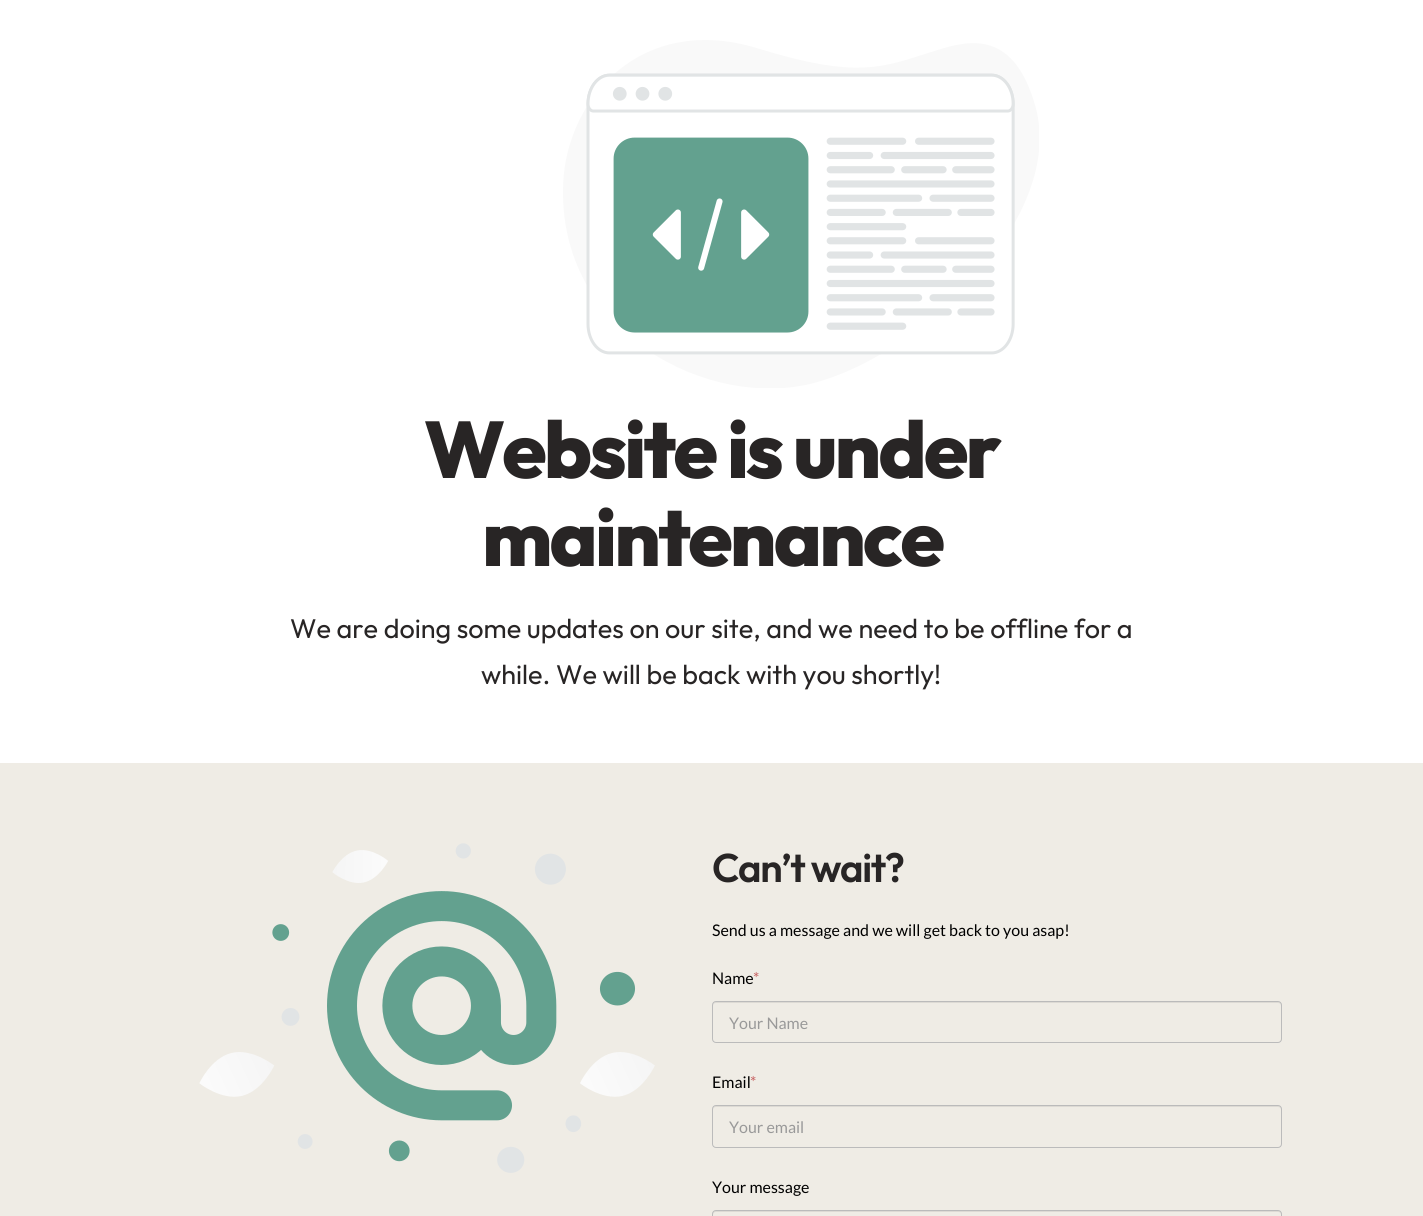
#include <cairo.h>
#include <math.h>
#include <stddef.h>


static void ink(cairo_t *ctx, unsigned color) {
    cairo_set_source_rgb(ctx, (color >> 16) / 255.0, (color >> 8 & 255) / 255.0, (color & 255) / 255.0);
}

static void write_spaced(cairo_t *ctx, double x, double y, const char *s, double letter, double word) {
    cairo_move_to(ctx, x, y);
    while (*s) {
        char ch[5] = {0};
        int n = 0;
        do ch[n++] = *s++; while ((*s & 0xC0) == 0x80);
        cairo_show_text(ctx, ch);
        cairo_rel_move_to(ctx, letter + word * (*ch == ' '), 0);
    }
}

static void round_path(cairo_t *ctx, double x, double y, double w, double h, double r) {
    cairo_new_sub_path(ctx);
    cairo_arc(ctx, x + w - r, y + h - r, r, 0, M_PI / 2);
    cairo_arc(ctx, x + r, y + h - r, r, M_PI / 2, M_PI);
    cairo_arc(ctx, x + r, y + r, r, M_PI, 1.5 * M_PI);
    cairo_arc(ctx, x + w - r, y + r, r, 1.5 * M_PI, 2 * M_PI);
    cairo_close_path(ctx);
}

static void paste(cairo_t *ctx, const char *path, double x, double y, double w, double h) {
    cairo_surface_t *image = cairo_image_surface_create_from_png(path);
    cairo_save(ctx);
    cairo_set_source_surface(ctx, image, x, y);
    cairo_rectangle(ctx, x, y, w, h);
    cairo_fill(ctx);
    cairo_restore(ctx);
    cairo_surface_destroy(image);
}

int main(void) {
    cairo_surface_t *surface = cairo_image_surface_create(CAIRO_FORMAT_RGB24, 1423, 1216);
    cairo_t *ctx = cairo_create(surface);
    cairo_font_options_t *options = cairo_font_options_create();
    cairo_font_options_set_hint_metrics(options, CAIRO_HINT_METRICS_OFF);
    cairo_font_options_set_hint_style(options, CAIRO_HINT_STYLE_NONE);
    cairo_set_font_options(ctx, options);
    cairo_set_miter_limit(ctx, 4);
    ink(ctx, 0xFFFFFF);
    cairo_paint(ctx);
    paste(ctx, "media/1.png", 563, 40, 476, 348);
    cairo_select_font_face(ctx, "Outfit ExtraBold", CAIRO_FONT_SLANT_NORMAL, CAIRO_FONT_WEIGHT_NORMAL);
    cairo_set_font_size(ctx, 80);
    ink(ctx, 0x282525);
    write_spaced(ctx, 424, 478, "Website is under", -2.75, 0);
    write_spaced(ctx, 482, 566, "maintenance", -2.75, 0);
    cairo_select_font_face(ctx, "Outfit", CAIRO_FONT_SLANT_NORMAL, CAIRO_FONT_WEIGHT_NORMAL);
    cairo_set_font_size(ctx, 27);
    cairo_move_to(ctx, 290, 638);
    cairo_show_text(ctx, "We are doing some updates on our site, and we need to be offline for a");
    cairo_move_to(ctx, 481, 684);
    cairo_show_text(ctx, "while. We will be back with you shortly!");
    ink(ctx, 0xEFECE5);
    cairo_rectangle(ctx, 0, 763, 1423, 453);
    cairo_fill(ctx);
    paste(ctx, "media/2.png", 199, 843, 456, 330);
    cairo_select_font_face(ctx, "Outfit SemiBold", CAIRO_FONT_SLANT_NORMAL, CAIRO_FONT_WEIGHT_NORMAL);
    cairo_set_font_size(ctx, 40);
    ink(ctx, 0x282525);
    write_spaced(ctx, 712, 882, "Can’t wait?", -1.4, 0);
    cairo_select_font_face(ctx, "Lato", CAIRO_FONT_SLANT_NORMAL, CAIRO_FONT_WEIGHT_NORMAL);
    cairo_set_font_size(ctx, 16);
    ink(ctx, 0x000000);
    cairo_move_to(ctx, 712, 936);
    cairo_show_text(ctx, "Send us a message and we will get back to you asap!");
    cairo_move_to(ctx, 712, 984);
    cairo_show_text(ctx, "Name");
    ink(ctx, 0xC66262);
    cairo_move_to(ctx, 753, 984);
    cairo_show_text(ctx, "*");
    ink(ctx, 0xDDDAD4);
    cairo_new_path(ctx);
    cairo_move_to(ctx, 716, 1003);
    cairo_line_to(ctx, 1278, 1003);
    cairo_curve_to(ctx, 1280, 1003, 1281, 1004, 1281, 1006);
    cairo_line_to(ctx, 1281, 1005);
    cairo_curve_to(ctx, 1281, 1003, 1280, 1002, 1278, 1002);
    cairo_line_to(ctx, 716, 1002);
    cairo_curve_to(ctx, 714, 1002, 713, 1003, 713, 1005);
    cairo_line_to(ctx, 713, 1006);
    cairo_curve_to(ctx, 713, 1004, 714, 1003, 716, 1003);
    cairo_close_path(ctx);
    cairo_fill(ctx);
    round_path(ctx, 712.5, 1001.5, 569, 41, 3.5);
    ink(ctx, 0xBBBBBB);
    cairo_set_line_width(ctx, 1);
    cairo_stroke(ctx);
    ink(ctx, 0x999999);
    cairo_move_to(ctx, 729, 1029);
    cairo_show_text(ctx, "Your Name");
    ink(ctx, 0x000000);
    cairo_move_to(ctx, 712, 1088);
    cairo_show_text(ctx, "Email");
    ink(ctx, 0xC66262);
    cairo_move_to(ctx, 750, 1088);
    cairo_show_text(ctx, "*");
    ink(ctx, 0xDDDAD4);
    cairo_new_path(ctx);
    cairo_move_to(ctx, 716, 1107);
    cairo_line_to(ctx, 1278, 1107);
    cairo_curve_to(ctx, 1280, 1107, 1281, 1108, 1281, 1110);
    cairo_line_to(ctx, 1281, 1109);
    cairo_curve_to(ctx, 1281, 1107, 1280, 1106, 1278, 1106);
    cairo_line_to(ctx, 716, 1106);
    cairo_curve_to(ctx, 714, 1106, 713, 1107, 713, 1109);
    cairo_line_to(ctx, 713, 1110);
    cairo_curve_to(ctx, 713, 1108, 714, 1107, 716, 1107);
    cairo_close_path(ctx);
    cairo_fill(ctx);
    round_path(ctx, 712.5, 1105.5, 569, 42, 3.5);
    ink(ctx, 0xBBBBBB);
    cairo_stroke(ctx);
    ink(ctx, 0x999999);
    cairo_move_to(ctx, 729, 1133);
    cairo_show_text(ctx, "Your email");
    ink(ctx, 0x000000);
    cairo_move_to(ctx, 712, 1193);
    cairo_show_text(ctx, "Your message");
    ink(ctx, 0xDDDAD4);
    cairo_new_path(ctx);
    cairo_move_to(ctx, 716, 1212);
    cairo_line_to(ctx, 1278, 1212);
    cairo_curve_to(ctx, 1280, 1212, 1281, 1213, 1281, 1215);
    cairo_line_to(ctx, 1281, 1214);
    cairo_curve_to(ctx, 1281, 1212, 1280, 1211, 1278, 1211);
    cairo_line_to(ctx, 716, 1211);
    cairo_curve_to(ctx, 714, 1211, 713, 1212, 713, 1214);
    cairo_line_to(ctx, 713, 1215);
    cairo_curve_to(ctx, 713, 1213, 714, 1212, 716, 1212);
    cairo_close_path(ctx);
    cairo_fill(ctx);
    round_path(ctx, 712.5, 1210.5, 569, 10, 3.5);
    ink(ctx, 0xBBBBBB);
    cairo_stroke(ctx);
    cairo_surface_write_to_png(surface, "image.png");
    cairo_font_options_destroy(options);
    cairo_destroy(ctx);
    cairo_surface_destroy(surface);
    return 0;
}
